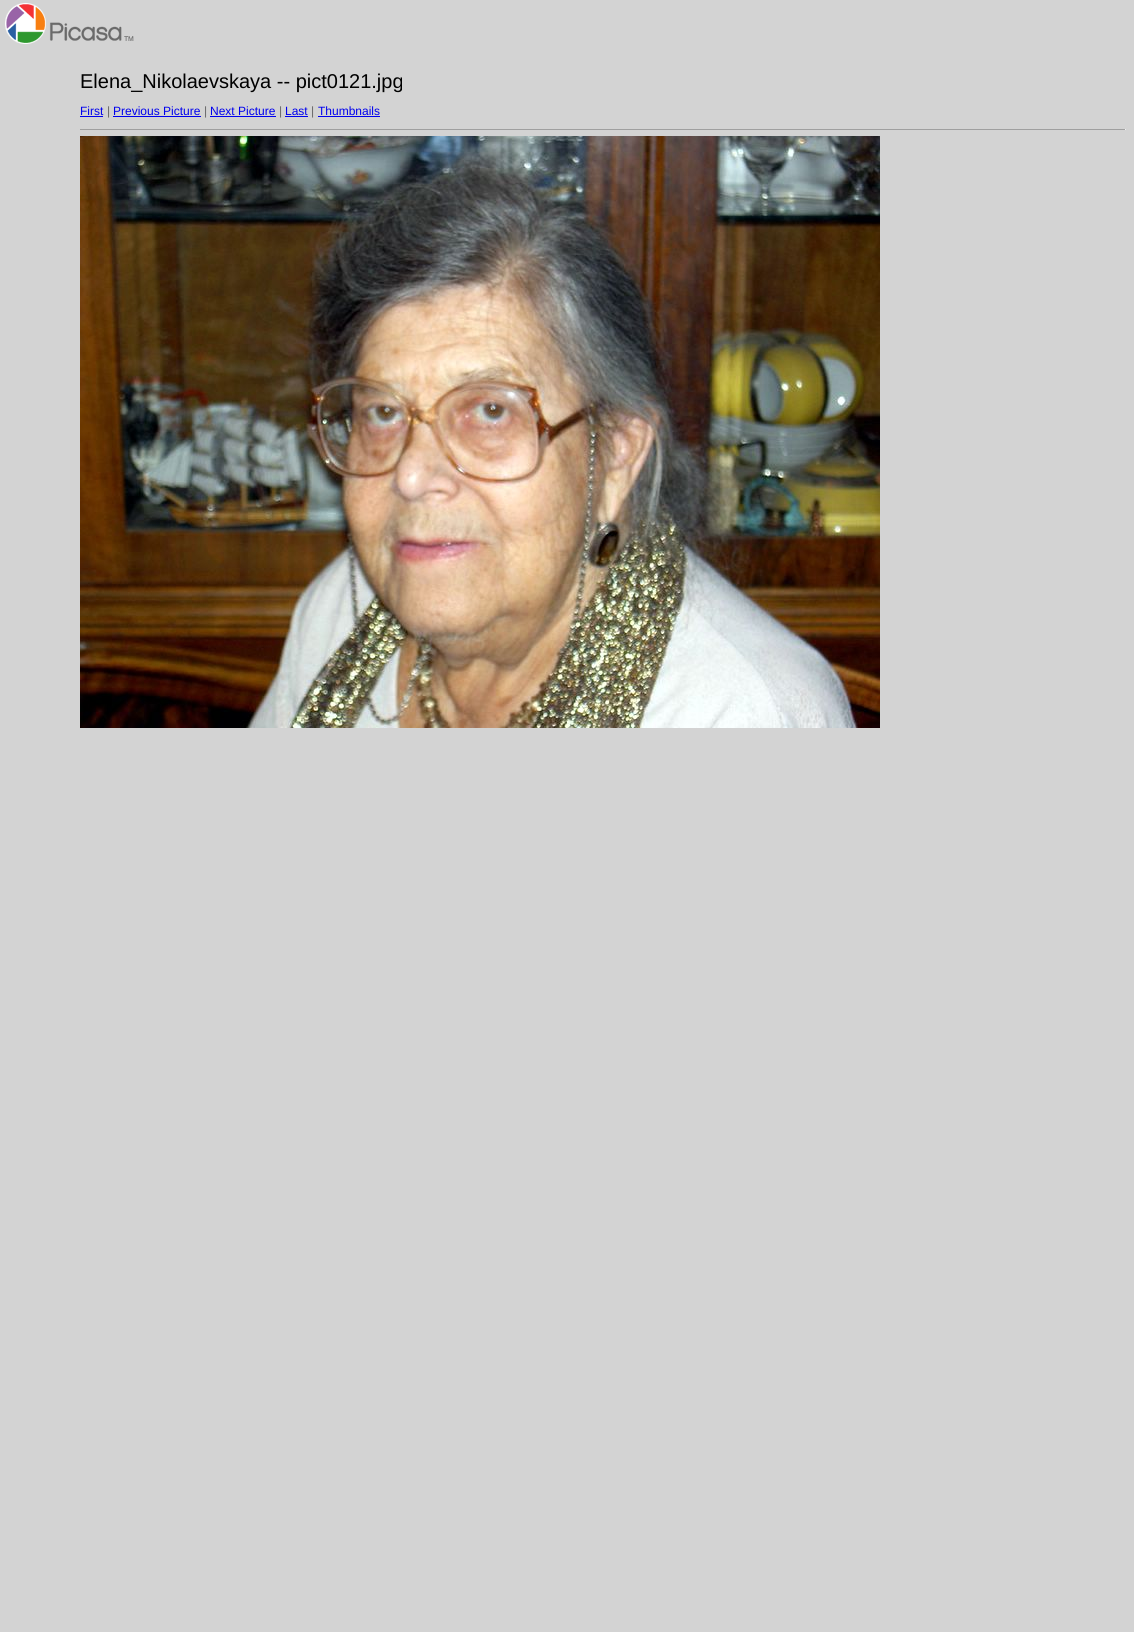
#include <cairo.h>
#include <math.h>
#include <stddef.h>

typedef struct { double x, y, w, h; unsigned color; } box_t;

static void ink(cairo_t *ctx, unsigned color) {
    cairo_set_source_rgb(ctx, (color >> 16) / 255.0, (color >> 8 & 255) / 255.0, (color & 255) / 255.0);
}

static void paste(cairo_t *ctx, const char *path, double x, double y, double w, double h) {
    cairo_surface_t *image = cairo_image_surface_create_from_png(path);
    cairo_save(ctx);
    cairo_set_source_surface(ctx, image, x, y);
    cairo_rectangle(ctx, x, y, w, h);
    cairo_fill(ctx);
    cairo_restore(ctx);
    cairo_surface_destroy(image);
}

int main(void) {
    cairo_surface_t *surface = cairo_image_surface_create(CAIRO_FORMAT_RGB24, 1134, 1632);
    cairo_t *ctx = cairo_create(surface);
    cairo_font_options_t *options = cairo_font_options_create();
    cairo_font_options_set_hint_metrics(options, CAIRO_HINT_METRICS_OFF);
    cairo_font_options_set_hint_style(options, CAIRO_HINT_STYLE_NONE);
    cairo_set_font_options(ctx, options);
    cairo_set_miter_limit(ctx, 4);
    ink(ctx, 0xD3D3D3);
    cairo_paint(ctx);
    paste(ctx, "media/1.png", 5, 3, 129, 41);
    cairo_select_font_face(ctx, "Liberation Sans", CAIRO_FONT_SLANT_NORMAL, CAIRO_FONT_WEIGHT_NORMAL);
    cairo_set_font_size(ctx, 20);
    ink(ctx, 0x000000);
    cairo_move_to(ctx, 80, 88);
    cairo_show_text(ctx, "Elena_Nikolaevskaya -- pict0121.jpg");
    cairo_set_font_size(ctx, 12);
    ink(ctx, 0x0000EE);
    cairo_move_to(ctx, 80, 115);
    cairo_show_text(ctx, "First");
    cairo_rectangle(ctx, 80, 116, 23, 1);
    cairo_fill(ctx);
    ink(ctx, 0x666666);
    cairo_move_to(ctx, 107, 115);
    cairo_show_text(ctx, "|");
    ink(ctx, 0x0000EE);
    cairo_move_to(ctx, 113, 115);
    cairo_show_text(ctx, "Previous Picture");
    cairo_rectangle(ctx, 113, 116, 88, 1);
    cairo_fill(ctx);
    ink(ctx, 0x666666);
    cairo_move_to(ctx, 204, 115);
    cairo_show_text(ctx, "|");
    ink(ctx, 0x0000EE);
    cairo_move_to(ctx, 210, 115);
    cairo_show_text(ctx, "Next Picture");
    cairo_rectangle(ctx, 210, 116, 66, 1);
    cairo_fill(ctx);
    ink(ctx, 0x666666);
    cairo_move_to(ctx, 279, 115);
    cairo_show_text(ctx, "|");
    ink(ctx, 0x0000EE);
    cairo_move_to(ctx, 285, 115);
    cairo_show_text(ctx, "Last");
    cairo_rectangle(ctx, 285, 116, 23, 1);
    cairo_fill(ctx);
    ink(ctx, 0x666666);
    cairo_move_to(ctx, 311, 115);
    cairo_show_text(ctx, "|");
    ink(ctx, 0x0000EE);
    cairo_move_to(ctx, 318, 115);
    cairo_show_text(ctx, "Thumbnails");
    {
        static const box_t items[] = {
            {318, 116, 62, 1, 0x0000EE},
            {80, 129, 1046, 1, 0x9F9F9F},
            {1125, 129, 1, 1, 0xEEEEEE},
        };
        for (size_t i = 0; i < sizeof items / sizeof *items; i++) {
            ink(ctx, items[i].color);
            cairo_rectangle(ctx, items[i].x, items[i].y, items[i].w, items[i].h);
            cairo_fill(ctx);
        }
    }
    paste(ctx, "media/2.png", 80, 136, 800, 592);
    cairo_surface_write_to_png(surface, "image.png");
    cairo_font_options_destroy(options);
    cairo_destroy(ctx);
    cairo_surface_destroy(surface);
    return 0;
}
